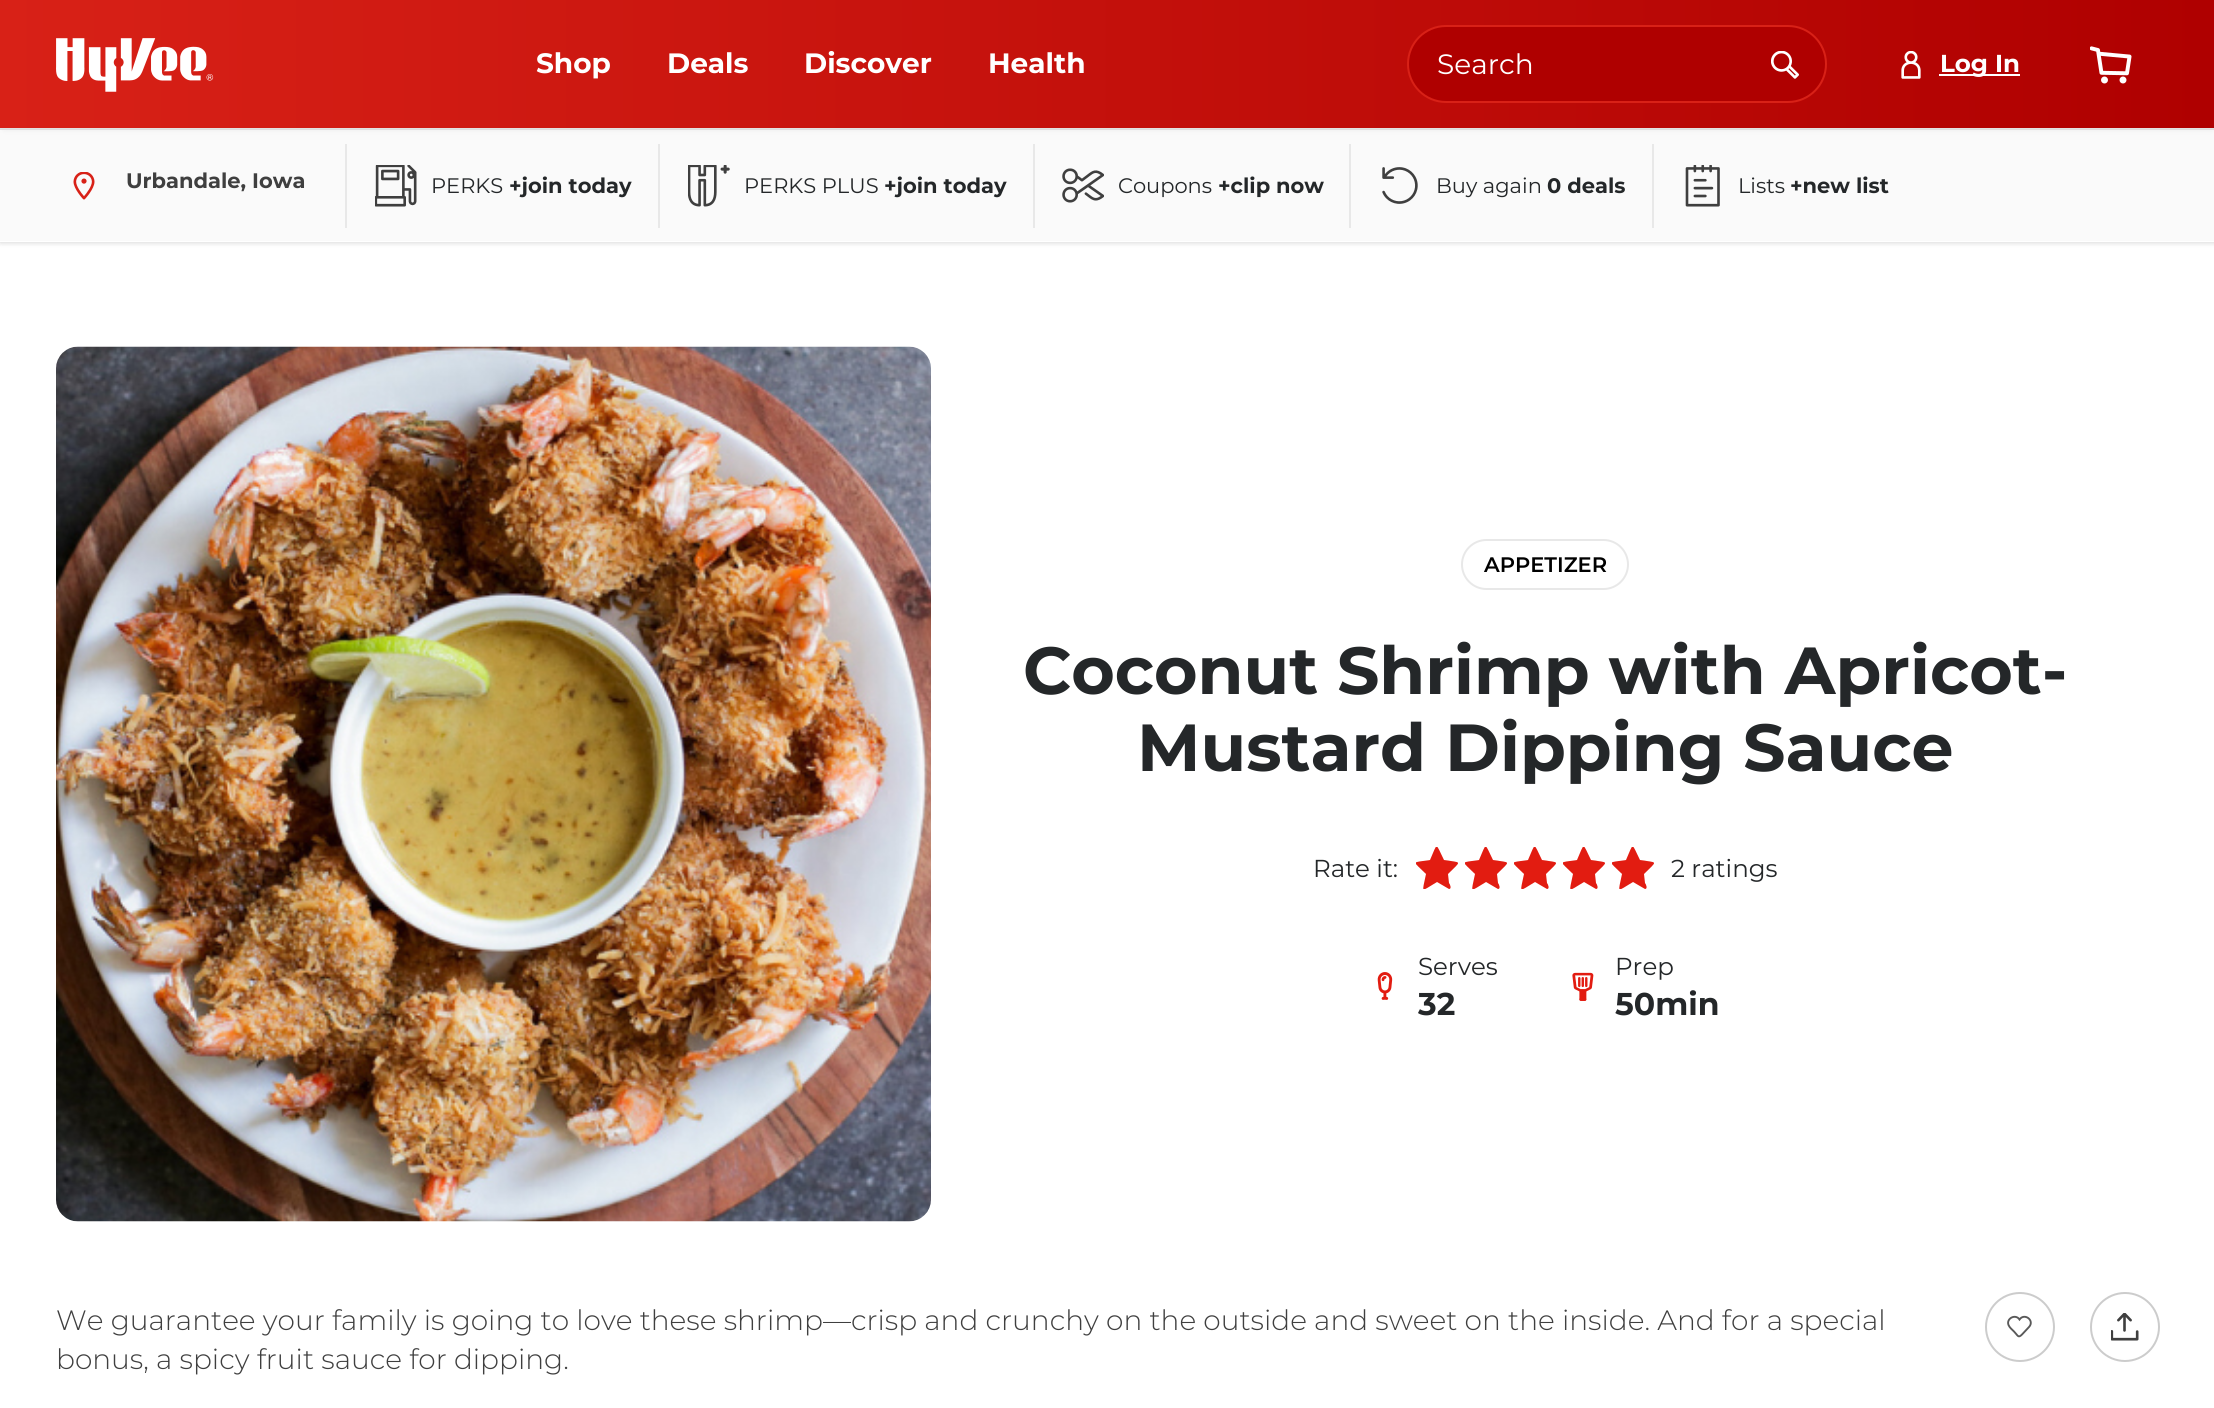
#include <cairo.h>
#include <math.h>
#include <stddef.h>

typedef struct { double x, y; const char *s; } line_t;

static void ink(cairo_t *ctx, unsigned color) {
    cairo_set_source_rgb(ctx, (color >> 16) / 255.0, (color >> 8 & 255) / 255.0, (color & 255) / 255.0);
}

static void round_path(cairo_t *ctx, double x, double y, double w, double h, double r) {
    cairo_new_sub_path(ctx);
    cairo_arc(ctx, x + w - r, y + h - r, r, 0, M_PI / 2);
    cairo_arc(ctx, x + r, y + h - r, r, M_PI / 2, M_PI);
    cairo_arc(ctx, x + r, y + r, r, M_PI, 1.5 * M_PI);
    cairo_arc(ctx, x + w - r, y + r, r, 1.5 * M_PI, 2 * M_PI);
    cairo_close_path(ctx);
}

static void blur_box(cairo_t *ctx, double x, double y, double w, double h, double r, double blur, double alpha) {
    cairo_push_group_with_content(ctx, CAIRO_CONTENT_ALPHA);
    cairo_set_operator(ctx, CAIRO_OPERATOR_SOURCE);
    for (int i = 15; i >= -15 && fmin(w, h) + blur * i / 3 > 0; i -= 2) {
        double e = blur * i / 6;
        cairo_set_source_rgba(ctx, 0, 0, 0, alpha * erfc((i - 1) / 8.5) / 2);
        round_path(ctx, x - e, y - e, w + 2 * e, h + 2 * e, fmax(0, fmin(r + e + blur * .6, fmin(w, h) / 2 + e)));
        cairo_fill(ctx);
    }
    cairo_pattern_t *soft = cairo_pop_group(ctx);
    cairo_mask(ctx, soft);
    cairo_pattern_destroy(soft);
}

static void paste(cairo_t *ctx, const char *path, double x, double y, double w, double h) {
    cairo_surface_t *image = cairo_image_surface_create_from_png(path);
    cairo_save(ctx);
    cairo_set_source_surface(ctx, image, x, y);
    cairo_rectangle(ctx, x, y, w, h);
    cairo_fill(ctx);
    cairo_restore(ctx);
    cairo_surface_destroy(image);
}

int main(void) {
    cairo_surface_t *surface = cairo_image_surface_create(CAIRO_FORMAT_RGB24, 2214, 1408);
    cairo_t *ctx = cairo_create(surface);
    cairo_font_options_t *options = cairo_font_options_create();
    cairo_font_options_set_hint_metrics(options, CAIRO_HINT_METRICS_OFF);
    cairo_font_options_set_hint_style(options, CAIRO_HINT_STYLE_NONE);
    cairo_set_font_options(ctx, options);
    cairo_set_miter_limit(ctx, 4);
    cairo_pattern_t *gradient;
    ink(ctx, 0xFFFFFF);
    cairo_paint(ctx);
    gradient = cairo_pattern_create_linear(0, 64, 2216, 64);
    cairo_pattern_add_color_stop_rgba(gradient, 0, 0.847, 0.129, 0.09, 1);
    cairo_pattern_add_color_stop_rgba(gradient, 1, 0.686, 0, 0, 1);
    cairo_set_source(ctx, gradient);
    cairo_pattern_destroy(gradient);
    cairo_rectangle(ctx, 0, 0, 2214, 128);
    cairo_fill(ctx);
    cairo_save(ctx);
    cairo_set_fill_rule(ctx, CAIRO_FILL_RULE_EVEN_ODD);
    cairo_new_path(ctx);
    cairo_move_to(ctx, 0, 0);
    cairo_line_to(ctx, 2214, 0);
    cairo_line_to(ctx, 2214, 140);
    cairo_line_to(ctx, 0, 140);
    cairo_close_path(ctx);
    cairo_move_to(ctx, 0, 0);
    cairo_line_to(ctx, 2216, 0);
    cairo_line_to(ctx, 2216, 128);
    cairo_line_to(ctx, 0, 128);
    cairo_close_path(ctx);
    cairo_clip(ctx);
    ink(ctx, 0x000000);
    blur_box(ctx, 4, 7, 2208, 121, 0, 3.5, 0.2);
    cairo_restore(ctx);
    paste(ctx, "media/1.png", 56, 38, 158, 54);
    cairo_select_font_face(ctx, "Montserrat", CAIRO_FONT_SLANT_NORMAL, CAIRO_FONT_WEIGHT_BOLD);
    cairo_set_font_size(ctx, 28);
    ink(ctx, 0xFFFFFF);
    {
        static const line_t items[] = {
            {536, 73, "Shop"},
            {667, 73, "Deals"},
            {804, 73, "Discover"},
            {988, 73, "Health"},
        };
        for (size_t i = 0; i < sizeof items / sizeof *items; i++) {
            cairo_move_to(ctx, items[i].x, items[i].y);
            cairo_show_text(ctx, items[i].s);
        }
    }
    ink(ctx, 0xAF0000);
    round_path(ctx, 1408, 26, 418, 76, 38);
    cairo_fill_preserve(ctx);
    ink(ctx, 0xD82117);
    cairo_stroke(ctx);
    cairo_select_font_face(ctx, "Montserrat", CAIRO_FONT_SLANT_NORMAL, CAIRO_FONT_WEIGHT_NORMAL);
    ink(ctx, 0xFFFFFF);
    cairo_move_to(ctx, 1437, 74);
    cairo_show_text(ctx, "Search");
    paste(ctx, "media/2.png", 1771, 51, 28, 28);
    paste(ctx, "media/3.png", 1901, 51, 20, 28);
    cairo_rectangle(ctx, 1939, 74, 81, 2);
    cairo_fill(ctx);
    cairo_select_font_face(ctx, "Montserrat", CAIRO_FONT_SLANT_NORMAL, CAIRO_FONT_WEIGHT_BOLD);
    cairo_set_font_size(ctx, 24.5);
    cairo_move_to(ctx, 1940, 72);
    cairo_show_text(ctx, "Log In");
    paste(ctx, "media/4.png", 2090, 46, 42, 38);
    ink(ctx, 0xE8E8E8);
    cairo_rectangle(ctx, 0, 128, 2214, 2);
    cairo_fill(ctx);
    cairo_save(ctx);
    cairo_set_fill_rule(ctx, CAIRO_FILL_RULE_EVEN_ODD);
    cairo_new_path(ctx);
    cairo_move_to(ctx, 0, 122);
    cairo_line_to(ctx, 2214, 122);
    cairo_line_to(ctx, 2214, 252);
    cairo_line_to(ctx, 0, 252);
    cairo_close_path(ctx);
    cairo_move_to(ctx, 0, 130);
    cairo_line_to(ctx, 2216, 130);
    cairo_line_to(ctx, 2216, 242);
    cairo_line_to(ctx, 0, 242);
    cairo_close_path(ctx);
    cairo_clip(ctx);
    ink(ctx, 0x000000);
    blur_box(ctx, 0, 131, 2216, 112, 0, 2.5, 0.15);
    cairo_restore(ctx);
    cairo_set_source_rgba(ctx, 0.961, 0.961, 0.961, 0.5);
    cairo_rectangle(ctx, 0, 130, 2214, 111);
    cairo_fill(ctx);
    paste(ctx, "media/5.png", 73, 172, 22, 28);
    cairo_set_font_size(ctx, 21);
    ink(ctx, 0x3F3F3F);
    cairo_move_to(ctx, 126, 188);
    cairo_show_text(ctx, "Urbandale, Iowa");
    ink(ctx, 0xE8E8E8);
    cairo_rectangle(ctx, 345, 144, 2, 84);
    cairo_fill(ctx);
    paste(ctx, "media/6.png", 375, 165, 42, 42);
    cairo_select_font_face(ctx, "Montserrat", CAIRO_FONT_SLANT_NORMAL, CAIRO_FONT_WEIGHT_NORMAL);
    ink(ctx, 0x242729);
    cairo_move_to(ctx, 431, 193);
    cairo_show_text(ctx, "PERKS");
    cairo_select_font_face(ctx, "Montserrat", CAIRO_FONT_SLANT_NORMAL, CAIRO_FONT_WEIGHT_BOLD);
    cairo_move_to(ctx, 509, 193);
    cairo_show_text(ctx, "+join today");
    ink(ctx, 0xE8E8E8);
    cairo_rectangle(ctx, 658, 144, 2, 84);
    cairo_fill(ctx);
    paste(ctx, "media/7.png", 688, 165, 42, 42);
    cairo_select_font_face(ctx, "Montserrat", CAIRO_FONT_SLANT_NORMAL, CAIRO_FONT_WEIGHT_NORMAL);
    ink(ctx, 0x242729);
    cairo_move_to(ctx, 744, 193);
    cairo_show_text(ctx, "PERKS PLUS");
    cairo_select_font_face(ctx, "Montserrat", CAIRO_FONT_SLANT_NORMAL, CAIRO_FONT_WEIGHT_BOLD);
    cairo_move_to(ctx, 884, 193);
    cairo_show_text(ctx, "+join today");
    ink(ctx, 0xE8E8E8);
    cairo_rectangle(ctx, 1033, 144, 2, 84);
    cairo_fill(ctx);
    paste(ctx, "media/8.png", 1062, 168, 42, 35);
    cairo_select_font_face(ctx, "Montserrat", CAIRO_FONT_SLANT_NORMAL, CAIRO_FONT_WEIGHT_NORMAL);
    ink(ctx, 0x242729);
    cairo_move_to(ctx, 1118, 193);
    cairo_show_text(ctx, "Coupons");
    cairo_select_font_face(ctx, "Montserrat", CAIRO_FONT_SLANT_NORMAL, CAIRO_FONT_WEIGHT_BOLD);
    cairo_move_to(ctx, 1218, 193);
    cairo_show_text(ctx, "+clip now");
    ink(ctx, 0xE8E8E8);
    cairo_rectangle(ctx, 1349, 144, 2, 84);
    cairo_fill(ctx);
    paste(ctx, "media/9.png", 1382, 167, 36, 37);
    cairo_select_font_face(ctx, "Montserrat", CAIRO_FONT_SLANT_NORMAL, CAIRO_FONT_WEIGHT_NORMAL);
    ink(ctx, 0x242729);
    cairo_move_to(ctx, 1436, 193);
    cairo_show_text(ctx, "Buy again");
    cairo_select_font_face(ctx, "Montserrat", CAIRO_FONT_SLANT_NORMAL, CAIRO_FONT_WEIGHT_BOLD);
    cairo_move_to(ctx, 1547, 193);
    cairo_show_text(ctx, "0 deals");
    ink(ctx, 0xE8E8E8);
    cairo_rectangle(ctx, 1652, 144, 2, 84);
    cairo_fill(ctx);
    paste(ctx, "media/10.png", 1685, 165, 35, 42);
    cairo_select_font_face(ctx, "Montserrat", CAIRO_FONT_SLANT_NORMAL, CAIRO_FONT_WEIGHT_NORMAL);
    ink(ctx, 0x242729);
    cairo_move_to(ctx, 1738, 193);
    cairo_show_text(ctx, "Lists");
    cairo_select_font_face(ctx, "Montserrat", CAIRO_FONT_SLANT_NORMAL, CAIRO_FONT_WEIGHT_BOLD);
    cairo_move_to(ctx, 1790, 193);
    cairo_show_text(ctx, "+new list");
    paste(ctx, "media/11.png", 56, 346, 875, 876);
    round_path(ctx, 1462, 540, 166, 49, 24.5);
    ink(ctx, 0xE8E8E8);
    cairo_stroke(ctx);
    cairo_select_font_face(ctx, "Montserrat SemiBold", CAIRO_FONT_SLANT_NORMAL, CAIRO_FONT_WEIGHT_NORMAL);
    ink(ctx, 0x000000);
    cairo_move_to(ctx, 1484, 572);
    cairo_show_text(ctx, "APPETIZER");
    cairo_select_font_face(ctx, "Montserrat", CAIRO_FONT_SLANT_NORMAL, CAIRO_FONT_WEIGHT_BOLD);
    cairo_set_font_size(ctx, 66.5);
    ink(ctx, 0x242729);
    cairo_move_to(ctx, 1023, 694);
    cairo_show_text(ctx, "Coconut Shrimp with Apricot-");
    cairo_move_to(ctx, 1137, 771);
    cairo_show_text(ctx, "Mustard Dipping Sauce");
    cairo_select_font_face(ctx, "Montserrat", CAIRO_FONT_SLANT_NORMAL, CAIRO_FONT_WEIGHT_NORMAL);
    cairo_set_font_size(ctx, 24.5);
    cairo_move_to(ctx, 1313, 877);
    cairo_show_text(ctx, "Rate it:");
    cairo_save(ctx);
    cairo_rectangle(ctx, 1416, 847, 42, 42);
    cairo_clip(ctx);
    ink(ctx, 0xE21C11);
    cairo_new_path(ctx);
    cairo_move_to(ctx, 1449, 889);
    cairo_line_to(ctx, 1437, 882);
    cairo_curve_to(ctx, 1420, 892, 1422, 894, 1426, 874);
    cairo_curve_to(ctx, 1412, 860, 1411, 863, 1430, 860);
    cairo_curve_to(ctx, 1438, 842, 1435, 842, 1444, 860);
    cairo_curve_to(ctx, 1462, 863, 1462, 860, 1448, 874);
    cairo_line_to(ctx, 1449, 883);
    cairo_curve_to(ctx, 1450, 884, 1452, 889, 1449, 889);
    cairo_close_path(ctx);
    cairo_fill(ctx);
    cairo_restore(ctx);
    cairo_save(ctx);
    cairo_rectangle(ctx, 1465, 847, 42, 42);
    cairo_clip(ctx);
    ink(ctx, 0xE21C11);
    cairo_new_path(ctx);
    cairo_move_to(ctx, 1498, 889);
    cairo_line_to(ctx, 1486, 882);
    cairo_curve_to(ctx, 1469, 892, 1471, 894, 1475, 874);
    cairo_curve_to(ctx, 1461, 860, 1460, 863, 1479, 860);
    cairo_curve_to(ctx, 1487, 842, 1484, 842, 1493, 860);
    cairo_curve_to(ctx, 1511, 863, 1511, 860, 1497, 874);
    cairo_line_to(ctx, 1498, 883);
    cairo_curve_to(ctx, 1499, 884, 1501, 889, 1498, 889);
    cairo_close_path(ctx);
    cairo_fill(ctx);
    cairo_restore(ctx);
    cairo_save(ctx);
    cairo_rectangle(ctx, 1514, 847, 42, 42);
    cairo_clip(ctx);
    ink(ctx, 0xE21C11);
    cairo_new_path(ctx);
    cairo_move_to(ctx, 1547, 889);
    cairo_line_to(ctx, 1535, 882);
    cairo_curve_to(ctx, 1518, 892, 1520, 894, 1524, 874);
    cairo_curve_to(ctx, 1510, 860, 1509, 863, 1528, 860);
    cairo_curve_to(ctx, 1536, 842, 1533, 842, 1542, 860);
    cairo_curve_to(ctx, 1560, 863, 1560, 860, 1546, 874);
    cairo_line_to(ctx, 1547, 883);
    cairo_curve_to(ctx, 1548, 884, 1550, 889, 1547, 889);
    cairo_close_path(ctx);
    cairo_fill(ctx);
    cairo_restore(ctx);
    cairo_save(ctx);
    cairo_rectangle(ctx, 1563, 847, 42, 42);
    cairo_clip(ctx);
    ink(ctx, 0xE21C11);
    cairo_new_path(ctx);
    cairo_move_to(ctx, 1596, 889);
    cairo_line_to(ctx, 1584, 882);
    cairo_curve_to(ctx, 1567, 892, 1569, 894, 1573, 874);
    cairo_curve_to(ctx, 1559, 860, 1558, 863, 1577, 860);
    cairo_curve_to(ctx, 1585, 842, 1582, 842, 1591, 860);
    cairo_curve_to(ctx, 1609, 863, 1609, 860, 1595, 874);
    cairo_line_to(ctx, 1596, 883);
    cairo_curve_to(ctx, 1597, 884, 1599, 889, 1596, 889);
    cairo_close_path(ctx);
    cairo_fill(ctx);
    cairo_restore(ctx);
    cairo_save(ctx);
    cairo_rectangle(ctx, 1612, 847, 42, 42);
    cairo_clip(ctx);
    ink(ctx, 0xE21C11);
    cairo_new_path(ctx);
    cairo_move_to(ctx, 1645, 889);
    cairo_line_to(ctx, 1633, 882);
    cairo_curve_to(ctx, 1616, 892, 1618, 894, 1622, 874);
    cairo_curve_to(ctx, 1608, 860, 1607, 863, 1626, 860);
    cairo_curve_to(ctx, 1634, 842, 1631, 842, 1640, 860);
    cairo_curve_to(ctx, 1658, 863, 1658, 860, 1644, 874);
    cairo_line_to(ctx, 1645, 883);
    cairo_curve_to(ctx, 1646, 884, 1648, 889, 1645, 889);
    cairo_close_path(ctx);
    cairo_fill(ctx);
    cairo_restore(ctx);
    cairo_move_to(ctx, 1671, 877);
    cairo_show_text(ctx, "2 ratings");
    paste(ctx, "media/12.png", 1377, 972, 16, 28);
    cairo_move_to(ctx, 1418, 975);
    cairo_show_text(ctx, "Serves");
    cairo_select_font_face(ctx, "Montserrat", CAIRO_FONT_SLANT_NORMAL, CAIRO_FONT_WEIGHT_BOLD);
    cairo_set_font_size(ctx, 31.5);
    cairo_move_to(ctx, 1418, 1015);
    cairo_show_text(ctx, "32");
    paste(ctx, "media/13.png", 1572, 972, 22, 29);
    cairo_select_font_face(ctx, "Montserrat", CAIRO_FONT_SLANT_NORMAL, CAIRO_FONT_WEIGHT_NORMAL);
    cairo_set_font_size(ctx, 24.5);
    cairo_move_to(ctx, 1615, 975);
    cairo_show_text(ctx, "Prep");
    cairo_select_font_face(ctx, "Montserrat", CAIRO_FONT_SLANT_NORMAL, CAIRO_FONT_WEIGHT_BOLD);
    cairo_set_font_size(ctx, 31.5);
    cairo_move_to(ctx, 1615, 1015);
    cairo_show_text(ctx, "50min");
    cairo_select_font_face(ctx, "Montserrat Light", CAIRO_FONT_SLANT_NORMAL, CAIRO_FONT_WEIGHT_NORMAL);
    cairo_set_font_size(ctx, 28);
    ink(ctx, 0x3F3F3F);
    cairo_move_to(ctx, 56, 1330);
    cairo_show_text(ctx, "We guarantee your family is going to love these shrimp—crisp and crunchy on the outside and sweet on the inside. And for a special");
    cairo_move_to(ctx, 56, 1369);
    cairo_show_text(ctx, "bonus, a spicy fruit sauce for dipping.");
    cairo_new_path(ctx);
    cairo_arc(ctx, 2020, 1327, 34, 0, 2 * M_PI);
    ink(ctx, 0xCCCCCC);
    cairo_stroke(ctx);
    cairo_new_path(ctx);
    cairo_move_to(ctx, 2029, 1327);
    cairo_curve_to(ctx, 2035, 1320.5, 2024.5, 1312.5, 2019.5, 1319.5);
    cairo_curve_to(ctx, 2015.5, 1313.5, 2006, 1318.5, 2008.5, 1325);
    cairo_curve_to(ctx, 2009.5, 1327.5, 2012, 1329.5, 2014, 1331.5);
    cairo_curve_to(ctx, 2018, 1335.5, 2018, 1338.5, 2022, 1334.5);
    cairo_line_to(ctx, 2029, 1327);
    ink(ctx, 0x595959);
    cairo_set_line_width(ctx, 1.9);
    cairo_stroke(ctx);
    cairo_arc(ctx, 2125, 1327, 34, 0, 2 * M_PI);
    ink(ctx, 0xCCCCCC);
    cairo_set_line_width(ctx, 2);
    cairo_stroke(ctx);
    paste(ctx, "media/14.png", 2111, 1313, 28, 28);
    cairo_surface_write_to_png(surface, "image.png");
    cairo_font_options_destroy(options);
    cairo_destroy(ctx);
    cairo_surface_destroy(surface);
    return 0;
}
